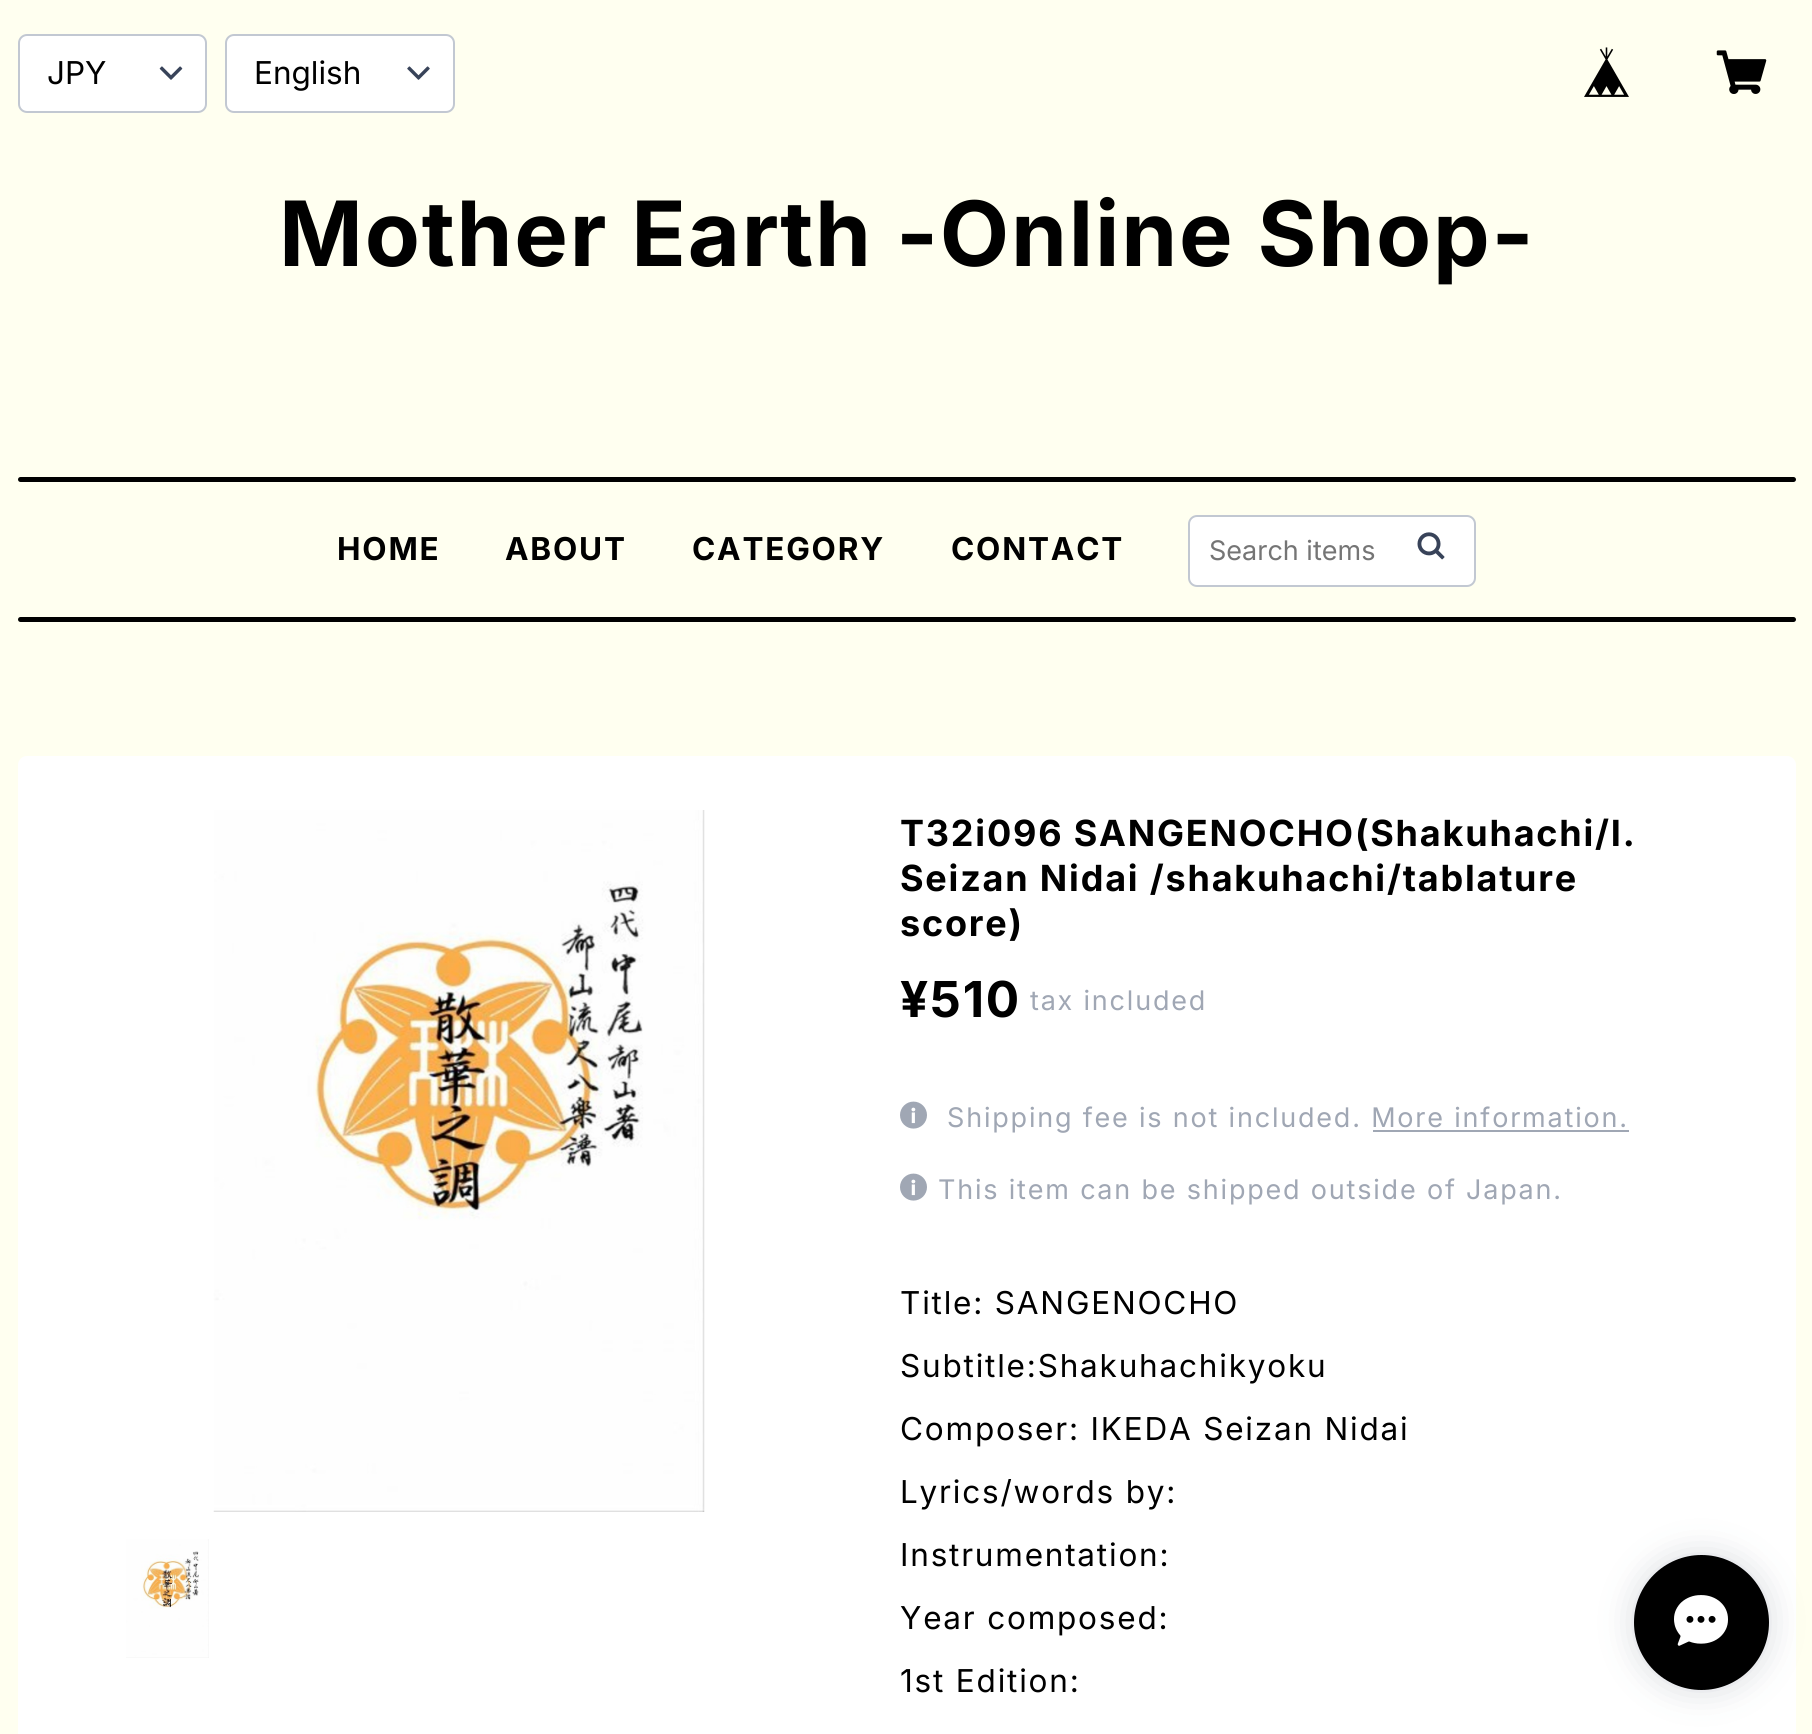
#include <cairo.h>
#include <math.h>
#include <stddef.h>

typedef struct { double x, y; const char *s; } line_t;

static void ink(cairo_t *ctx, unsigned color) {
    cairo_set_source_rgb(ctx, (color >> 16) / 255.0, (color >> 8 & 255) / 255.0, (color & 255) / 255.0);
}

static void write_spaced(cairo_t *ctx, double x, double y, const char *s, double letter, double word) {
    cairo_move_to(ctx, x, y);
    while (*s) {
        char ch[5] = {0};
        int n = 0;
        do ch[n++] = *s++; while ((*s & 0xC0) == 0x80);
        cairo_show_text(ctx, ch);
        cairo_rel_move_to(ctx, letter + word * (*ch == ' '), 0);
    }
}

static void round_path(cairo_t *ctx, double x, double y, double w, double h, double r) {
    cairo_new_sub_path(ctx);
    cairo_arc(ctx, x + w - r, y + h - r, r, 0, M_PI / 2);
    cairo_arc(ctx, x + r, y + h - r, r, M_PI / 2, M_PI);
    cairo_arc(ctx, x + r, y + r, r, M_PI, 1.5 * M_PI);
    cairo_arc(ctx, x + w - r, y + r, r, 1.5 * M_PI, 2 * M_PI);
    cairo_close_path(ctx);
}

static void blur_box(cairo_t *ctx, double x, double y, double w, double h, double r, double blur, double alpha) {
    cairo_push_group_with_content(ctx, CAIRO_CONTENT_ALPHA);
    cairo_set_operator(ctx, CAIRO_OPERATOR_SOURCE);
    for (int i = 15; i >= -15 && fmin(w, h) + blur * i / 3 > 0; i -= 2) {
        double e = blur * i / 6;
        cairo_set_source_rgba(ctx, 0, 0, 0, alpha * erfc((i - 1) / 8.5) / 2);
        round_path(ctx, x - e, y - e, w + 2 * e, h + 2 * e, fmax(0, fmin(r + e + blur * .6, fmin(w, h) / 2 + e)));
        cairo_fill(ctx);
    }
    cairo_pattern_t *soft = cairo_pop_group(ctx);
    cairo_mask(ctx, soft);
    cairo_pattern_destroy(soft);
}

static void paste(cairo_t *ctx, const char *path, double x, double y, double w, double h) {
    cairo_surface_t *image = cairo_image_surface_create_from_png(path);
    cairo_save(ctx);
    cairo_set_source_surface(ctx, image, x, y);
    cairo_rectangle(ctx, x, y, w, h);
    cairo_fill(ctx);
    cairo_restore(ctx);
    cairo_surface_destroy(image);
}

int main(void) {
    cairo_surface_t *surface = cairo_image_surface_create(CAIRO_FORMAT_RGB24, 1812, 1734);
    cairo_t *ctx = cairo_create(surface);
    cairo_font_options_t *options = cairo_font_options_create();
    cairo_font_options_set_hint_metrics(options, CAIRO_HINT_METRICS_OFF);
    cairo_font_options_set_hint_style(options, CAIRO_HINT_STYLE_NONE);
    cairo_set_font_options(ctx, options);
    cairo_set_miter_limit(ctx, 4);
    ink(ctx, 0xFFFFF0);
    cairo_paint(ctx);
    ink(ctx, 0xFFFFFF);
    round_path(ctx, 19, 35, 187, 77, 8);
    cairo_fill_preserve(ctx);
    ink(ctx, 0xC2C8D2);
    cairo_stroke(ctx);
    cairo_select_font_face(ctx, "Inter", CAIRO_FONT_SLANT_NORMAL, CAIRO_FONT_WEIGHT_NORMAL);
    cairo_set_font_size(ctx, 31.5);
    ink(ctx, 0x000000);
    cairo_move_to(ctx, 47, 84);
    cairo_show_text(ctx, "JPY");
    paste(ctx, "media/1.png", 159, 66, 24, 14);
    ink(ctx, 0xFFFFFF);
    round_path(ctx, 226, 35, 228, 77, 8);
    cairo_fill_preserve(ctx);
    ink(ctx, 0xC2C8D2);
    cairo_stroke(ctx);
    ink(ctx, 0x000000);
    cairo_move_to(ctx, 254, 84);
    cairo_show_text(ctx, "English");
    paste(ctx, "media/2.png", 407, 66, 23, 14);
    paste(ctx, "media/3.png", 1584, 47, 45, 50);
    paste(ctx, "media/4.png", 1716, 50, 51, 44);
    cairo_select_font_face(ctx, "Inter", CAIRO_FONT_SLANT_NORMAL, CAIRO_FONT_WEIGHT_BOLD);
    cairo_set_font_size(ctx, 90);
    write_spaced(ctx, 279, 266, "Mother Earth -Online Shop-", 1.8, 0);
    round_path(ctx, 18, 477, 1778, 5, 2.5);
    cairo_fill(ctx);
    cairo_set_font_size(ctx, 31.5);
    {
        static const line_t items[] = {
            {337, 560, "HOME"},
            {505, 560, "ABOUT"},
            {692, 560, "CATEGORY"},
            {951, 560, "CONTACT"},
        };
        for (size_t i = 0; i < sizeof items / sizeof *items; i++) {
            write_spaced(ctx, items[i].x, items[i].y, items[i].s, 1.8, 0);
        }
    }
    ink(ctx, 0xFFFFFF);
    round_path(ctx, 1189, 516, 286, 70, 8);
    cairo_fill_preserve(ctx);
    ink(ctx, 0xC2C8D2);
    cairo_stroke(ctx);
    cairo_select_font_face(ctx, "Inter", CAIRO_FONT_SLANT_NORMAL, CAIRO_FONT_WEIGHT_NORMAL);
    cairo_set_font_size(ctx, 27);
    ink(ctx, 0x757575);
    cairo_move_to(ctx, 1209, 560);
    cairo_show_text(ctx, "Search items");
    paste(ctx, "media/5.png", 1417, 532, 28, 28);
    ink(ctx, 0x000000);
    round_path(ctx, 18, 617, 1778, 5, 2.5);
    cairo_fill(ctx);
    ink(ctx, 0xFFFFFF);
    round_path(ctx, 18, 756, 1778, 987, 9);
    cairo_fill(ctx);
    paste(ctx, "media/6.png", 213, 810, 492, 702);
    paste(ctx, "media/7.png", 126, 1539, 83, 119);
    cairo_select_font_face(ctx, "Inter", CAIRO_FONT_SLANT_NORMAL, CAIRO_FONT_WEIGHT_BOLD);
    cairo_set_font_size(ctx, 36);
    ink(ctx, 0x000000);
    {
        static const line_t items[] = {
            {900, 846, "T32i096 SANGENOCHO(Shakuhachi/I."},
            {900, 891, "Seizan Nidai /shakuhachi/tablature"},
            {900, 936, "score)"},
        };
        for (size_t i = 0; i < sizeof items / sizeof *items; i++) {
            write_spaced(ctx, items[i].x, items[i].y, items[i].s, 1.8, 0);
        }
    }
    cairo_set_font_size(ctx, 49.5);
    write_spaced(ctx, 900, 1017, "¥510", 1.8, 0);
    cairo_select_font_face(ctx, "Inter", CAIRO_FONT_SLANT_NORMAL, CAIRO_FONT_WEIGHT_NORMAL);
    cairo_set_font_size(ctx, 27);
    ink(ctx, 0xA0A7B4);
    write_spaced(ctx, 1030, 1010, "tax included", 1.8, 0);
    paste(ctx, "media/8.png", 900, 1101, 27, 28);
    write_spaced(ctx, 947, 1127, "Shipping fee is not included. More information.", 1.8, 0);
    cairo_rectangle(ctx, 1373, 1130, 256, 2);
    cairo_fill(ctx);
    paste(ctx, "media/8.png", 900, 1173, 27, 28);
    write_spaced(ctx, 938, 1199, "This item can be shipped outside of Japan.", 1.8, 0);
    cairo_set_font_size(ctx, 31.5);
    ink(ctx, 0x000000);
    {
        static const line_t items[] = {
            {900, 1314, "Title: SANGENOCHO"},
            {900, 1377, "Subtitle:Shakuhachikyoku"},
            {900, 1440, "Composer: IKEDA Seizan Nidai"},
            {900, 1503, "Lyrics/words by:"},
            {900, 1566, "Instrumentation:"},
            {900, 1629, "Year composed:"},
            {900, 1692, "1st Edition:"},
        };
        for (size_t i = 0; i < sizeof items / sizeof *items; i++) {
            write_spaced(ctx, items[i].x, items[i].y, items[i].s, 1.8, 0);
        }
    }
    ink(ctx, 0x334258);
    blur_box(ctx, 1634, 1555, 135, 135, 67.5, 17, 0.2);
    ink(ctx, 0x000000);
    cairo_arc(ctx, 1701.5, 1622.5, 67.5, 0, 2 * M_PI);
    cairo_fill(ctx);
    paste(ctx, "media/9.png", 1674, 1595, 54, 51);
    cairo_surface_write_to_png(surface, "image.png");
    cairo_font_options_destroy(options);
    cairo_destroy(ctx);
    cairo_surface_destroy(surface);
    return 0;
}
